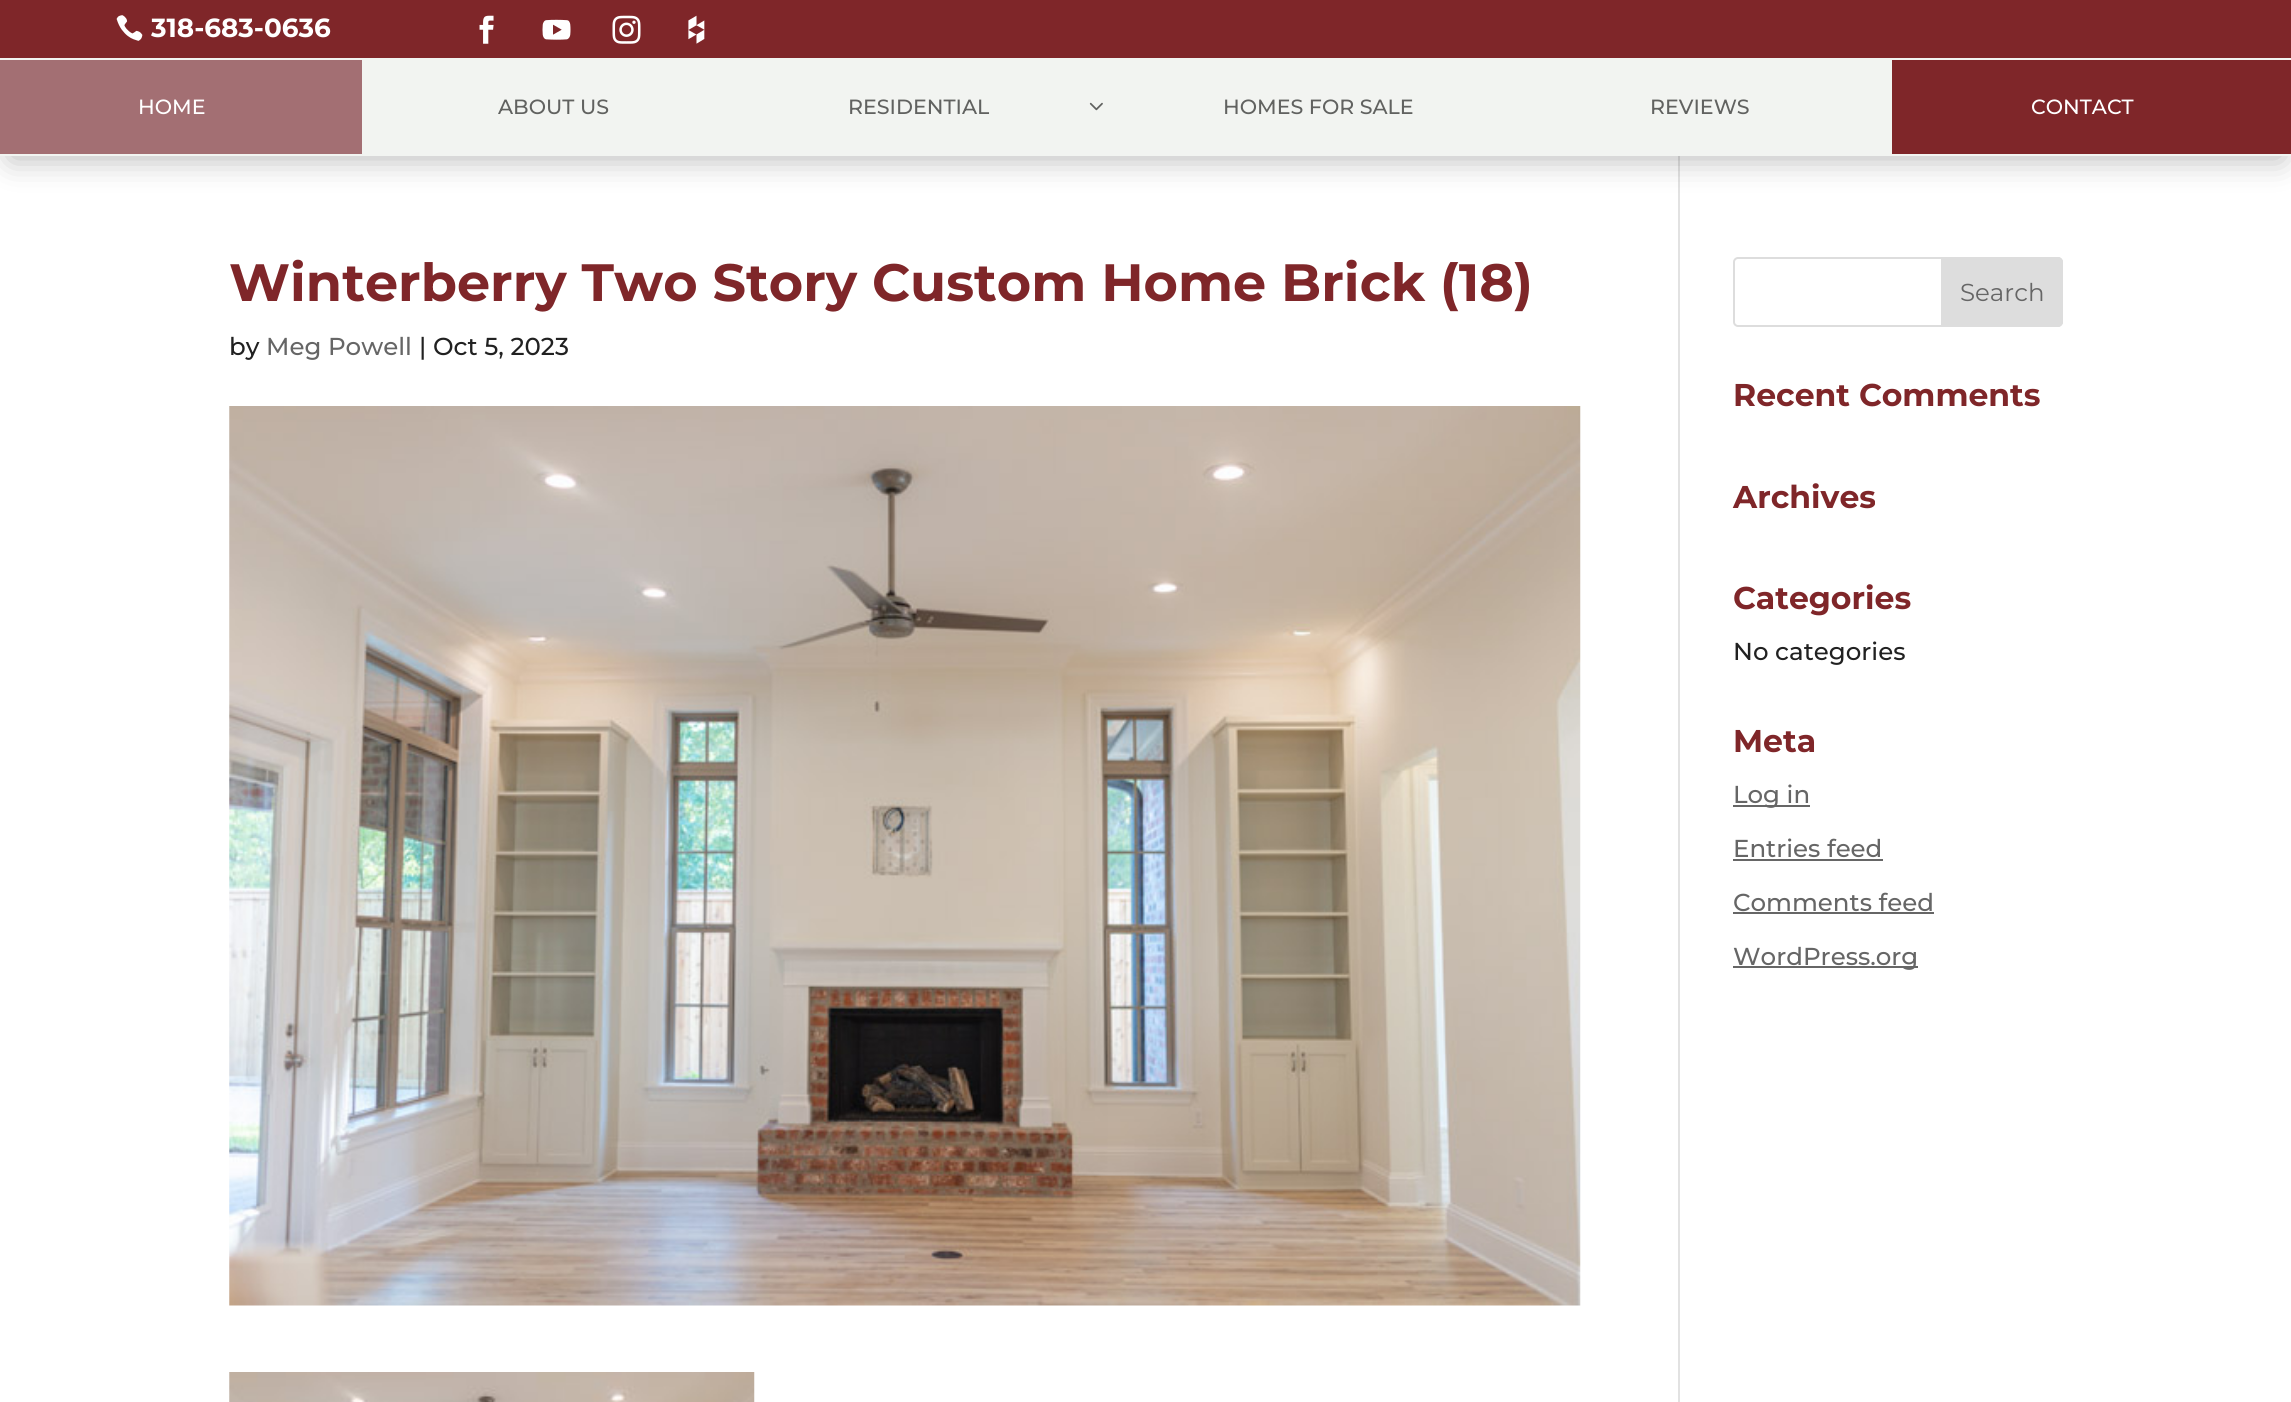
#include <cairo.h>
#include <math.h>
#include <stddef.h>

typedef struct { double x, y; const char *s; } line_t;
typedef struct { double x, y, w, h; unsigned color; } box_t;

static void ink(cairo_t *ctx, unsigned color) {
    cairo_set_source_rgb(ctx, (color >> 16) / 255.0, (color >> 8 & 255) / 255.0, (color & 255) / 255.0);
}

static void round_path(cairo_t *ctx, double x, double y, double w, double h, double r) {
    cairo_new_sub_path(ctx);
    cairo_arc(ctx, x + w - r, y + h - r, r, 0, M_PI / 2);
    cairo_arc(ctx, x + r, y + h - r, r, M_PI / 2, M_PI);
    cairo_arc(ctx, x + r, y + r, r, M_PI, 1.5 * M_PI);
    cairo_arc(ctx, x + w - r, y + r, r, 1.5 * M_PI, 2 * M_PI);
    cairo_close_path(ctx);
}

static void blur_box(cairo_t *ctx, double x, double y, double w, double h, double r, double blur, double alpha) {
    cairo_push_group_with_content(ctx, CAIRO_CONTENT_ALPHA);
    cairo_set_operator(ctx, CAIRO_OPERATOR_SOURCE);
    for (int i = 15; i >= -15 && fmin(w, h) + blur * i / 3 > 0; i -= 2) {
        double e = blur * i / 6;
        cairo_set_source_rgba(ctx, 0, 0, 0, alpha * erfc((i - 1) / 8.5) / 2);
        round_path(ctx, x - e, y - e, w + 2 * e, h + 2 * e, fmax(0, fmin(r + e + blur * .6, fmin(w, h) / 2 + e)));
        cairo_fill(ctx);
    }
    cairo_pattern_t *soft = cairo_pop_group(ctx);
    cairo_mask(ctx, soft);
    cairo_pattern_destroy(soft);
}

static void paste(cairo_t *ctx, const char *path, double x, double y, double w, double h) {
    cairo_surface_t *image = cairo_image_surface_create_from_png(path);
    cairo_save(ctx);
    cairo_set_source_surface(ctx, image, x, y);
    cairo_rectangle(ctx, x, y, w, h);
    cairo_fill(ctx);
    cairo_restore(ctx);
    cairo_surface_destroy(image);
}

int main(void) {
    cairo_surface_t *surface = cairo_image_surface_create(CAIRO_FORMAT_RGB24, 2291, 1402);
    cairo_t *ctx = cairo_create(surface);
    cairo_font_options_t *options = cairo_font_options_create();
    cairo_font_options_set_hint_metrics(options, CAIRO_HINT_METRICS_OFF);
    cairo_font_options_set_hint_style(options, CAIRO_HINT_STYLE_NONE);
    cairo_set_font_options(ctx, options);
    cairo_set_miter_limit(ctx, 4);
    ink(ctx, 0xFFFFFF);
    cairo_paint(ctx);
    ink(ctx, 0xE2E2E2);
    cairo_rectangle(ctx, 1678, 156, 2, 1246);
    cairo_fill(ctx);
    ink(ctx, 0x000000);
    blur_box(ctx, 11, 23, 2271, 135, 0, 16, 0.3);
    ink(ctx, 0x7F2629);
    cairo_rectangle(ctx, 0, 0, 2291, 58);
    cairo_fill(ctx);
    paste(ctx, "media/1.png", 116, 15, 27, 26);
    cairo_select_font_face(ctx, "Montserrat", CAIRO_FONT_SLANT_NORMAL, CAIRO_FONT_WEIGHT_BOLD);
    cairo_set_font_size(ctx, 26.25);
    ink(ctx, 0xFFFFFF);
    cairo_move_to(ctx, 151, 37);
    cairo_show_text(ctx, "318-683-0636");
    paste(ctx, "media/2.png", 479, 15, 15, 29);
    paste(ctx, "media/3.png", 542, 19, 29, 21);
    paste(ctx, "media/4.png", 612, 15, 29, 29);
    paste(ctx, "media/5.png", 688, 15, 17, 29);
    {
        static const box_t items[] = {
            {1892, 60, 399, 94, 0x7F2629},
            {0, 58, 2291, 2, 0xF2F4F1},
            {0, 154, 2291, 2, 0xF2F4F1},
            {0, 60, 362, 94, 0xA36F73},
        };
        for (size_t i = 0; i < sizeof items / sizeof *items; i++) {
            ink(ctx, items[i].color);
            cairo_rectangle(ctx, items[i].x, items[i].y, items[i].w, items[i].h);
            cairo_fill(ctx);
        }
    }
    cairo_select_font_face(ctx, "Montserrat Medium", CAIRO_FONT_SLANT_NORMAL, CAIRO_FONT_WEIGHT_NORMAL);
    cairo_set_font_size(ctx, 20.6);
    ink(ctx, 0xFFFFFF);
    cairo_move_to(ctx, 138, 114);
    cairo_show_text(ctx, "HOME");
    ink(ctx, 0xF2F4F1);
    cairo_rectangle(ctx, 362, 60, 1530, 94);
    cairo_fill(ctx);
    ink(ctx, 0x616260);
    cairo_move_to(ctx, 498, 114);
    cairo_show_text(ctx, "ABOUT US");
    cairo_move_to(ctx, 848, 114);
    cairo_show_text(ctx, "RESIDENTIAL");
    paste(ctx, "media/6.png", 1089, 102, 14, 9);
    cairo_move_to(ctx, 1223, 114);
    cairo_show_text(ctx, "HOMES FOR SALE");
    cairo_move_to(ctx, 1650, 114);
    cairo_show_text(ctx, "REVIEWS");
    ink(ctx, 0xFFFFFF);
    cairo_move_to(ctx, 2031, 114);
    cairo_show_text(ctx, "CONTACT");
    cairo_select_font_face(ctx, "Montserrat", CAIRO_FONT_SLANT_NORMAL, CAIRO_FONT_WEIGHT_BOLD);
    cairo_set_font_size(ctx, 52.5);
    ink(ctx, 0x7F2629);
    cairo_move_to(ctx, 229, 301);
    cairo_show_text(ctx, "Winterberry Two Story Custom Home Brick (18)");
    cairo_select_font_face(ctx, "Montserrat Medium", CAIRO_FONT_SLANT_NORMAL, CAIRO_FONT_WEIGHT_NORMAL);
    cairo_set_font_size(ctx, 24.5);
    ink(ctx, 0x212121);
    cairo_move_to(ctx, 229, 355);
    cairo_show_text(ctx, "by");
    ink(ctx, 0x666666);
    cairo_move_to(ctx, 266, 355);
    cairo_show_text(ctx, "Meg Powell");
    ink(ctx, 0x212121);
    cairo_move_to(ctx, 419, 355);
    cairo_show_text(ctx, "| Oct 5, 2023");
    paste(ctx, "media/7.png", 229, 406, 1352, 900);
    paste(ctx, "media/8.png", 229, 1372, 526, 30);
    round_path(ctx, 1734, 258, 328, 68, 4);
    ink(ctx, 0xDDDDDD);
    cairo_stroke(ctx);
    cairo_new_path(ctx);
    cairo_move_to(ctx, 1942, 258);
    cairo_line_to(ctx, 2058, 258);
    cairo_curve_to(ctx, 2060, 258, 2062, 260, 2062, 262);
    cairo_line_to(ctx, 2062, 322);
    cairo_curve_to(ctx, 2062, 324, 2060, 326, 2058, 326);
    cairo_line_to(ctx, 1942, 326);
    cairo_close_path(ctx);
    cairo_fill_preserve(ctx);
    cairo_stroke(ctx);
    cairo_select_font_face(ctx, "Montserrat", CAIRO_FONT_SLANT_NORMAL, CAIRO_FONT_WEIGHT_NORMAL);
    ink(ctx, 0x666666);
    cairo_move_to(ctx, 1960, 301);
    cairo_show_text(ctx, "Search");
    cairo_select_font_face(ctx, "Montserrat", CAIRO_FONT_SLANT_NORMAL, CAIRO_FONT_WEIGHT_BOLD);
    cairo_set_font_size(ctx, 31.5);
    ink(ctx, 0x7F2629);
    {
        static const line_t items[] = {
            {1733, 406, "Recent Comments"},
            {1733, 508, "Archives"},
            {1733, 609, "Categories"},
        };
        for (size_t i = 0; i < sizeof items / sizeof *items; i++) {
            cairo_move_to(ctx, items[i].x, items[i].y);
            cairo_show_text(ctx, items[i].s);
        }
    }
    cairo_select_font_face(ctx, "Montserrat Medium", CAIRO_FONT_SLANT_NORMAL, CAIRO_FONT_WEIGHT_NORMAL);
    cairo_set_font_size(ctx, 24.5);
    ink(ctx, 0x212121);
    cairo_move_to(ctx, 1733, 660);
    cairo_show_text(ctx, "No categories");
    cairo_select_font_face(ctx, "Montserrat", CAIRO_FONT_SLANT_NORMAL, CAIRO_FONT_WEIGHT_BOLD);
    cairo_set_font_size(ctx, 31.5);
    ink(ctx, 0x7F2629);
    cairo_move_to(ctx, 1733, 752);
    cairo_show_text(ctx, "Meta");
    ink(ctx, 0x666666);
    cairo_rectangle(ctx, 1733, 805, 77, 2);
    cairo_fill(ctx);
    cairo_select_font_face(ctx, "Montserrat Medium", CAIRO_FONT_SLANT_NORMAL, CAIRO_FONT_WEIGHT_NORMAL);
    cairo_set_font_size(ctx, 24.5);
    cairo_move_to(ctx, 1733, 803);
    cairo_show_text(ctx, "Log in");
    cairo_move_to(ctx, 1733, 857);
    cairo_show_text(ctx, "Entries feed");
    cairo_rectangle(ctx, 1733, 859, 150, 2);
    cairo_fill(ctx);
    cairo_move_to(ctx, 1733, 911);
    cairo_show_text(ctx, "Comments feed");
    cairo_rectangle(ctx, 1733, 912, 201, 2);
    cairo_fill(ctx);
    cairo_rectangle(ctx, 1733, 966, 185, 2);
    cairo_fill(ctx);
    cairo_move_to(ctx, 1733, 965);
    cairo_show_text(ctx, "WordPress.org");
    cairo_surface_write_to_png(surface, "image.png");
    cairo_font_options_destroy(options);
    cairo_destroy(ctx);
    cairo_surface_destroy(surface);
    return 0;
}
